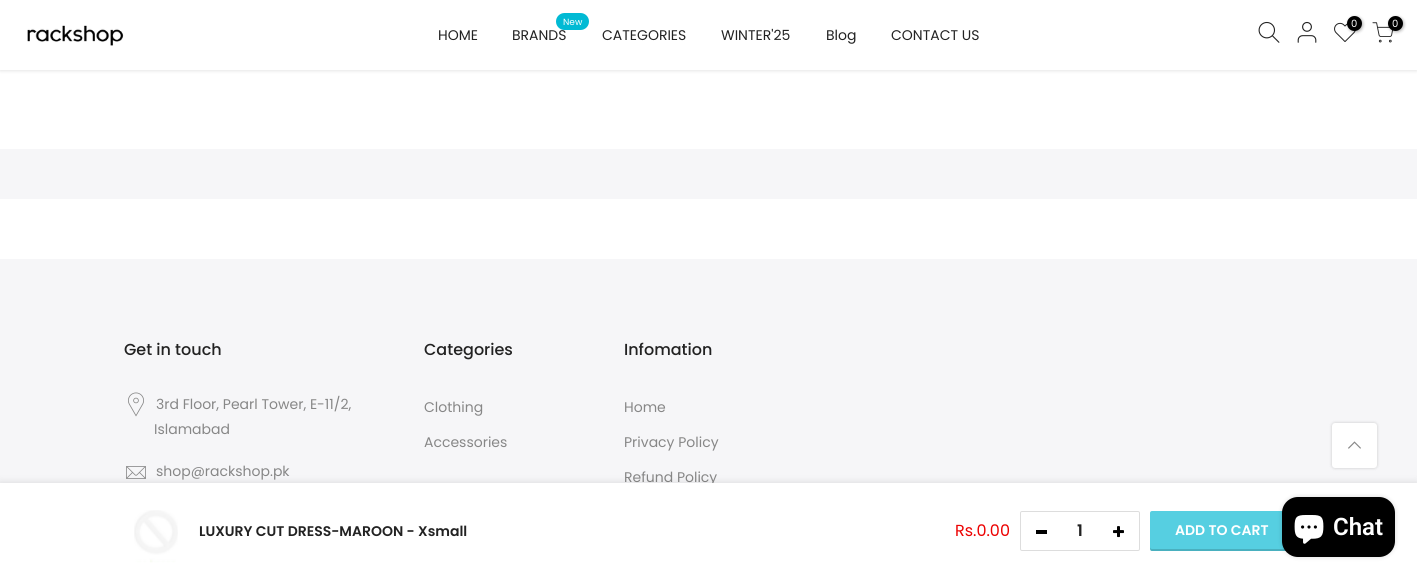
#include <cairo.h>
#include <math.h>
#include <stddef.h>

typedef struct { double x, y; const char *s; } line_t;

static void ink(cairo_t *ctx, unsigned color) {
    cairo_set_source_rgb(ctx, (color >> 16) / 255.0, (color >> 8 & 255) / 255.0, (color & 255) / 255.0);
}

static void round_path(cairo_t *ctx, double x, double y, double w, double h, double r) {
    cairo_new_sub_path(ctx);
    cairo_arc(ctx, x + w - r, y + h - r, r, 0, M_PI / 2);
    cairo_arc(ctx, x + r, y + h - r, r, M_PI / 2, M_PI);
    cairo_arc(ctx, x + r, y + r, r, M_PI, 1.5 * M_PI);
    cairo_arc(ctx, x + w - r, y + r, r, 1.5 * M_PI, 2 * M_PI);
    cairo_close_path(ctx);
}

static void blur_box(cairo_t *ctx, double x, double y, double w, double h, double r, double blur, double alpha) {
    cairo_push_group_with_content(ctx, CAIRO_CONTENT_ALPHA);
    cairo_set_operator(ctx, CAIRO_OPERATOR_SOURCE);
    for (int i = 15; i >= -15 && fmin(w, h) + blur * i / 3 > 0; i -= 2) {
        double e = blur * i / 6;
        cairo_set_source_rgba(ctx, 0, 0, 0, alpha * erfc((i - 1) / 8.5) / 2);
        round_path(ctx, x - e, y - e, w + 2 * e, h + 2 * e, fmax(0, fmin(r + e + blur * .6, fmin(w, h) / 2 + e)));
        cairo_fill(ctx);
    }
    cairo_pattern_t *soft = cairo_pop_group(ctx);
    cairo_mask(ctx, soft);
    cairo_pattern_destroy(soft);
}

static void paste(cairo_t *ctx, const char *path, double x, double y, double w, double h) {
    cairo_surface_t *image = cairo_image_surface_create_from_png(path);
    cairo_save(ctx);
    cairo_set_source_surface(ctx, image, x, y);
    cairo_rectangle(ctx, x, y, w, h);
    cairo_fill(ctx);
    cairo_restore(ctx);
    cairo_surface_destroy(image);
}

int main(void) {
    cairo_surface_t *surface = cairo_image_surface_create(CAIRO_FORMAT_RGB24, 1417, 578);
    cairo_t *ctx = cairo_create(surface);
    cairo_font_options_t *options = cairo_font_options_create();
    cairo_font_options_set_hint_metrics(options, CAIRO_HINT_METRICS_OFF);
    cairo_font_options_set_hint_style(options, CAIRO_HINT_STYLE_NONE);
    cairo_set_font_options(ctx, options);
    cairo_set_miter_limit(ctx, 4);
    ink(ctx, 0xFFFFFF);
    cairo_paint(ctx);
    ink(ctx, 0x000000);
    blur_box(ctx, 0, 1, 1417, 70, 0, 1.5, 0.1);
    ink(ctx, 0xFFFFFF);
    cairo_rectangle(ctx, 0, 0, 1417, 70);
    cairo_fill(ctx);
    cairo_select_font_face(ctx, "Poppins", CAIRO_FONT_SLANT_NORMAL, CAIRO_FONT_WEIGHT_NORMAL);
    cairo_set_font_size(ctx, 14);
    ink(ctx, 0x222222);
    cairo_move_to(ctx, 438, 40);
    cairo_show_text(ctx, "HOME");
    ink(ctx, 0x01BAD4);
    round_path(ctx, 556, 13, 33, 17, 8.5);
    cairo_fill(ctx);
    cairo_set_font_size(ctx, 9);
    ink(ctx, 0xFFFFFF);
    cairo_move_to(ctx, 563, 25);
    cairo_show_text(ctx, "New");
    cairo_set_font_size(ctx, 14);
    ink(ctx, 0x222222);
    {
        static const line_t items[] = {
            {512, 40, "BRANDS"},
            {602, 40, "CATEGORIES"},
            {721, 40, "WINTER'25"},
            {826, 40, "Blog"},
            {891, 40, "CONTACT US"},
        };
        for (size_t i = 0; i < sizeof items / sizeof *items; i++) {
            cairo_move_to(ctx, items[i].x, items[i].y);
            cairo_show_text(ctx, items[i].s);
        }
    }
    paste(ctx, "media/1.png", 1258, 21, 22, 22);
    paste(ctx, "media/2.png", 1297, 21, 20, 22);
    paste(ctx, "media/3.png", 1334, 22, 22, 20);
    ink(ctx, 0x000000);
    blur_box(ctx, 1348, 17, 15, 15, 7.5, 1.5, 0.3);
    ink(ctx, 0x000000);
    cairo_arc(ctx, 1354.5, 23.5, 7.5, 0, 2 * M_PI);
    cairo_fill(ctx);
    cairo_set_font_size(ctx, 10);
    ink(ctx, 0xFFFFFF);
    cairo_move_to(ctx, 1351, 27);
    cairo_show_text(ctx, "0");
    paste(ctx, "media/4.png", 1372, 22, 21, 21);
    ink(ctx, 0x000000);
    blur_box(ctx, 1389, 17, 15, 15, 7.5, 1.5, 0.3);
    ink(ctx, 0x000000);
    cairo_arc(ctx, 1395.5, 23.5, 7.5, 0, 2 * M_PI);
    cairo_fill(ctx);
    ink(ctx, 0xFFFFFF);
    cairo_move_to(ctx, 1392, 27);
    cairo_show_text(ctx, "0");
    paste(ctx, "media/5.png", 27, 25, 97, 21);
    ink(ctx, 0xF6F6F8);
    cairo_rectangle(ctx, 0, 149, 1417, 50);
    cairo_fill(ctx);
    cairo_rectangle(ctx, 0, 259, 1417, 224);
    cairo_fill(ctx);
    cairo_select_font_face(ctx, "Poppins Medium", CAIRO_FONT_SLANT_NORMAL, CAIRO_FONT_WEIGHT_NORMAL);
    cairo_set_font_size(ctx, 16);
    ink(ctx, 0x222222);
    cairo_move_to(ctx, 124, 355);
    cairo_show_text(ctx, "Get in touch");
    paste(ctx, "media/6.png", 128, 392, 16, 25);
    cairo_select_font_face(ctx, "Poppins", CAIRO_FONT_SLANT_NORMAL, CAIRO_FONT_WEIGHT_NORMAL);
    cairo_set_font_size(ctx, 14);
    ink(ctx, 0x878787);
    cairo_move_to(ctx, 156, 409);
    cairo_show_text(ctx, "3rd Floor, Pearl Tower, E-11/2,");
    cairo_move_to(ctx, 154, 434);
    cairo_show_text(ctx, "Islamabad");
    paste(ctx, "media/7.png", 126, 466, 20, 13);
    cairo_move_to(ctx, 156, 476);
    cairo_show_text(ctx, "shop@rackshop.pk");
    cairo_select_font_face(ctx, "Poppins Medium", CAIRO_FONT_SLANT_NORMAL, CAIRO_FONT_WEIGHT_NORMAL);
    cairo_set_font_size(ctx, 16);
    ink(ctx, 0x222222);
    cairo_move_to(ctx, 424, 355);
    cairo_show_text(ctx, "Categories");
    cairo_select_font_face(ctx, "Poppins", CAIRO_FONT_SLANT_NORMAL, CAIRO_FONT_WEIGHT_NORMAL);
    cairo_set_font_size(ctx, 14);
    ink(ctx, 0x878787);
    cairo_move_to(ctx, 424, 412);
    cairo_show_text(ctx, "Clothing");
    cairo_move_to(ctx, 424, 447);
    cairo_show_text(ctx, "Accessories");
    cairo_select_font_face(ctx, "Poppins Medium", CAIRO_FONT_SLANT_NORMAL, CAIRO_FONT_WEIGHT_NORMAL);
    cairo_set_font_size(ctx, 16);
    ink(ctx, 0x222222);
    cairo_move_to(ctx, 624, 355);
    cairo_show_text(ctx, "Infomation");
    cairo_select_font_face(ctx, "Poppins", CAIRO_FONT_SLANT_NORMAL, CAIRO_FONT_WEIGHT_NORMAL);
    cairo_set_font_size(ctx, 14);
    ink(ctx, 0x878787);
    {
        static const line_t items[] = {
            {624, 412, "Home"},
            {624, 447, "Privacy Policy"},
            {624, 482, "Refund Policy"},
        };
        for (size_t i = 0; i < sizeof items / sizeof *items; i++) {
            cairo_move_to(ctx, items[i].x, items[i].y);
            cairo_show_text(ctx, items[i].s);
        }
    }
    ink(ctx, 0x000000);
    blur_box(ctx, 1332, 423, 45, 45, 3, 1.5, 0.2);
    ink(ctx, 0xFFFFFF);
    round_path(ctx, 1332, 423, 45, 45, 3);
    cairo_fill(ctx);
    paste(ctx, "media/8.png", 1348, 441, 13, 8);
    ink(ctx, 0x000000);
    blur_box(ctx, 0, 483, 1417, 95, 0, 4.5, 0.12);
    ink(ctx, 0xFFFFFF);
    cairo_rectangle(ctx, 0, 483, 1417, 95);
    cairo_fill(ctx);
    paste(ctx, "media/9.png", 134, 510, 44, 53);
    cairo_select_font_face(ctx, "Poppins SemiBold", CAIRO_FONT_SLANT_NORMAL, CAIRO_FONT_WEIGHT_NORMAL);
    ink(ctx, 0x222222);
    cairo_move_to(ctx, 199, 536);
    cairo_show_text(ctx, "LUXURY CUT DRESS-MAROON - Xsmall");
    cairo_select_font_face(ctx, "Poppins", CAIRO_FONT_SLANT_NORMAL, CAIRO_FONT_WEIGHT_NORMAL);
    cairo_set_font_size(ctx, 16);
    ink(ctx, 0xEC0101);
    cairo_move_to(ctx, 955, 536);
    cairo_show_text(ctx, "Rs.0.00");
    round_path(ctx, 1020.5, 511.5, 119, 39, 1.5);
    ink(ctx, 0xDDDDDD);
    cairo_set_line_width(ctx, 1);
    cairo_stroke(ctx);
    cairo_select_font_face(ctx, "Poppins SemiBold", CAIRO_FONT_SLANT_NORMAL, CAIRO_FONT_WEIGHT_NORMAL);
    ink(ctx, 0x222222);
    cairo_move_to(ctx, 1077, 536);
    cairo_show_text(ctx, "1");
    ink(ctx, 0x000000);
    cairo_rectangle(ctx, 1036, 530, 11, 4);
    cairo_fill(ctx);
    paste(ctx, "media/10.png", 1113, 526, 11, 12);
    ink(ctx, 0x56CFE1);
    round_path(ctx, 1150, 511, 144, 40, 2);
    cairo_fill(ctx);
    cairo_set_source_rgba(ctx, 0, 0, 0, 0.15);
    cairo_new_path(ctx);
    cairo_move_to(ctx, 1150, 547);
    cairo_curve_to(ctx, 1150, 548, 1150, 550, 1151, 551);
    cairo_line_to(ctx, 1292, 551);
    cairo_curve_to(ctx, 1294, 551, 1294, 549, 1294, 547);
    cairo_curve_to(ctx, 1294, 548, 1293, 549, 1292, 549);
    cairo_line_to(ctx, 1152, 549);
    cairo_curve_to(ctx, 1151, 549, 1150, 548, 1150, 547);
    cairo_close_path(ctx);
    cairo_fill(ctx);
    cairo_set_font_size(ctx, 14);
    ink(ctx, 0xFFFFFF);
    cairo_move_to(ctx, 1175, 535);
    cairo_show_text(ctx, "ADD TO CART");
    ink(ctx, 0x000000);
    blur_box(ctx, 1282, 497, 113, 60, 16, 2.5, 0.15);
    ink(ctx, 0x000000);
    round_path(ctx, 1282, 497, 113, 60, 16);
    cairo_fill(ctx);
    paste(ctx, "media/11.png", 1294, 515, 30, 29);
    cairo_select_font_face(ctx, "Roboto SemiBold", CAIRO_FONT_SLANT_NORMAL, CAIRO_FONT_WEIGHT_NORMAL);
    cairo_set_font_size(ctx, 24);
    ink(ctx, 0xFFFFFF);
    cairo_move_to(ctx, 1333, 535);
    cairo_show_text(ctx, "Chat");
    cairo_surface_write_to_png(surface, "image.png");
    cairo_font_options_destroy(options);
    cairo_destroy(ctx);
    cairo_surface_destroy(surface);
    return 0;
}
